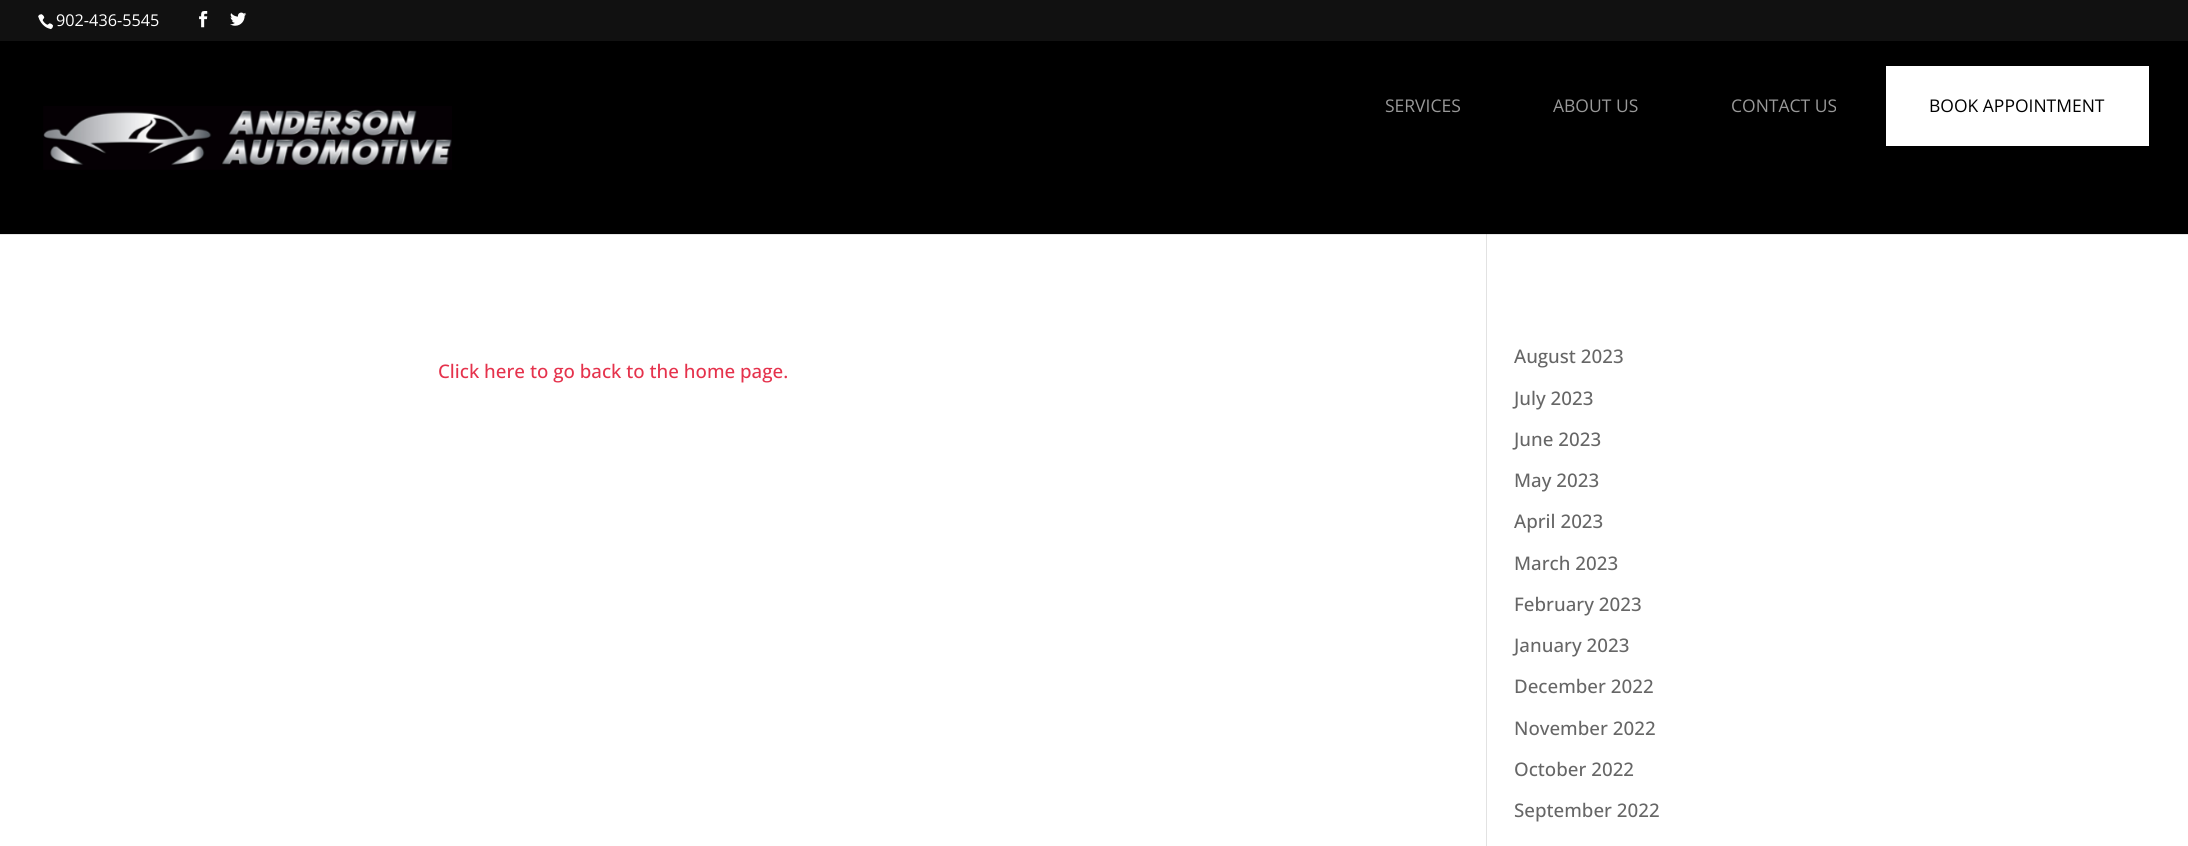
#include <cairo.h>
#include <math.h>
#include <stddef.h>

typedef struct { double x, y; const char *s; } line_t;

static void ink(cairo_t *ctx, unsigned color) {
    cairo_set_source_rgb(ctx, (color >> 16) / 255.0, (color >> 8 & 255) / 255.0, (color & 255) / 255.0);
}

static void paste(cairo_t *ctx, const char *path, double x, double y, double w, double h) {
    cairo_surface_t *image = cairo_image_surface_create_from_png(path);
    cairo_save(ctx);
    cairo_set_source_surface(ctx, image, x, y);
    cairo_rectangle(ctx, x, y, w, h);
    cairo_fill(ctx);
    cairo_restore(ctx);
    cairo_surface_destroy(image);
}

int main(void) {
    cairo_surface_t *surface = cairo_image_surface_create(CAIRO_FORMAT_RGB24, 2188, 846);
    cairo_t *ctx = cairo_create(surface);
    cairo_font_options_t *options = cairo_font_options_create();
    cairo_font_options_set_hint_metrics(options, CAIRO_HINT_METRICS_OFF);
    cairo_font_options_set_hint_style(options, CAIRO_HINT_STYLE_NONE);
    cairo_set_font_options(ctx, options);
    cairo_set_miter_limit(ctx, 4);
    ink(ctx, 0x000000);
    cairo_paint(ctx);
    ink(ctx, 0x111111);
    cairo_rectangle(ctx, 0, 0, 2188, 41);
    cairo_fill(ctx);
    paste(ctx, "media/1.png", 38, 14, 16, 16);
    cairo_select_font_face(ctx, "Open Sans", CAIRO_FONT_SLANT_NORMAL, CAIRO_FONT_WEIGHT_NORMAL);
    cairo_set_font_size(ctx, 16.25);
    ink(ctx, 0xFFFFFF);
    cairo_move_to(ctx, 56, 26);
    cairo_show_text(ctx, "902-436-5545");
    paste(ctx, "media/2.png", 199, 11, 9, 17);
    paste(ctx, "media/3.png", 230, 12, 17, 14);
    cairo_rectangle(ctx, 0, 234, 2188, 612);
    cairo_fill(ctx);
    ink(ctx, 0xE2E2E2);
    cairo_rectangle(ctx, 1486, 234, 1, 612);
    cairo_fill(ctx);
    cairo_set_source_rgba(ctx, 0, 0, 0, 0.1);
    cairo_new_path(ctx);
    cairo_move_to(ctx, 0, 234);
    cairo_line_to(ctx, 0, 235);
    cairo_line_to(ctx, 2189, 235);
    cairo_line_to(ctx, 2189, 43);
    cairo_line_to(ctx, 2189, 234);
    cairo_close_path(ctx);
    cairo_fill(ctx);
    paste(ctx, "media/4.png", 43, 106, 409, 64);
    cairo_set_font_size(ctx, 17.5);
    ink(ctx, 0x999999);
    {
        static const line_t items[] = {
            {1385, 112, "SERVICES"},
            {1553, 112, "ABOUT US"},
            {1731, 112, "CONTACT US"},
        };
        for (size_t i = 0; i < sizeof items / sizeof *items; i++) {
            cairo_move_to(ctx, items[i].x, items[i].y);
            cairo_show_text(ctx, items[i].s);
        }
    }
    ink(ctx, 0xFFFFFF);
    cairo_rectangle(ctx, 1886, 66, 263, 80);
    cairo_fill(ctx);
    ink(ctx, 0x000000);
    cairo_move_to(ctx, 1929, 112);
    cairo_show_text(ctx, "BOOK APPOINTMENT");
    cairo_select_font_face(ctx, "Open Sans Medium", CAIRO_FONT_SLANT_NORMAL, CAIRO_FONT_WEIGHT_NORMAL);
    cairo_set_font_size(ctx, 18.75);
    ink(ctx, 0xE5324C);
    cairo_move_to(ctx, 438, 378);
    cairo_show_text(ctx, "Click here to go back to the home page.");
    ink(ctx, 0x666666);
    {
        static const line_t items[] = {
            {1514, 363, "August 2023"},
            {1514, 405, "July 2023"},
            {1514, 446, "June 2023"},
            {1514, 487, "May 2023"},
            {1514, 528, "April 2023"},
            {1514, 570, "March 2023"},
            {1514, 611, "February 2023"},
            {1514, 652, "January 2023"},
            {1514, 693, "December 2022"},
            {1514, 735, "November 2022"},
            {1514, 776, "October 2022"},
            {1514, 817, "September 2022"},
        };
        for (size_t i = 0; i < sizeof items / sizeof *items; i++) {
            cairo_move_to(ctx, items[i].x, items[i].y);
            cairo_show_text(ctx, items[i].s);
        }
    }
    cairo_surface_write_to_png(surface, "image.png");
    cairo_font_options_destroy(options);
    cairo_destroy(ctx);
    cairo_surface_destroy(surface);
    return 0;
}
